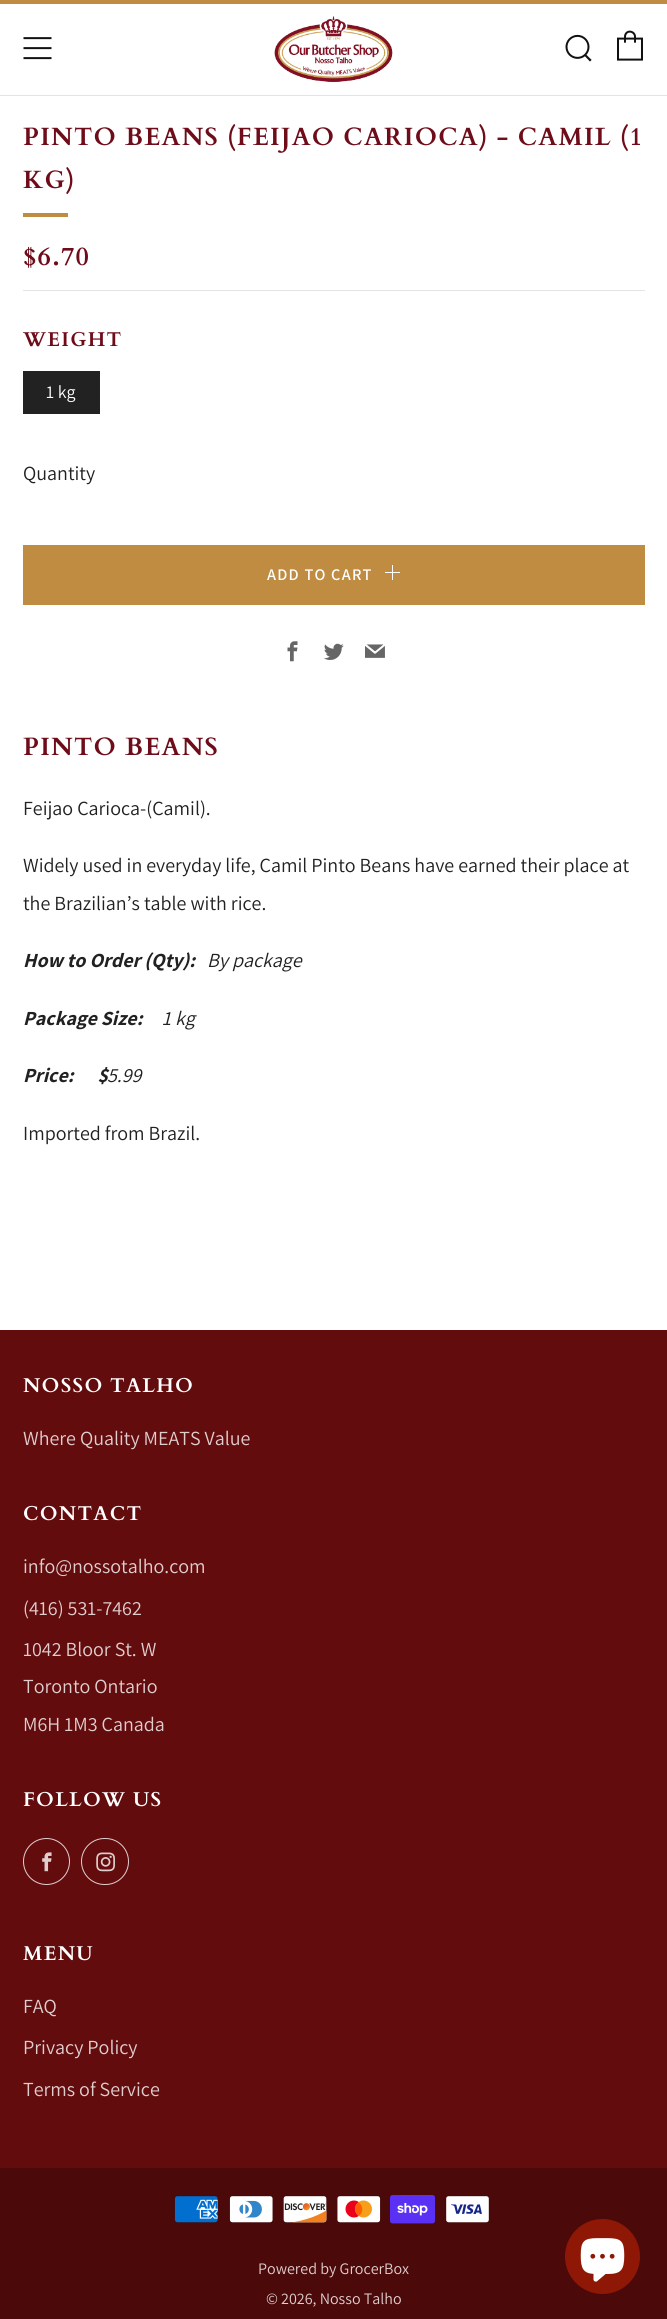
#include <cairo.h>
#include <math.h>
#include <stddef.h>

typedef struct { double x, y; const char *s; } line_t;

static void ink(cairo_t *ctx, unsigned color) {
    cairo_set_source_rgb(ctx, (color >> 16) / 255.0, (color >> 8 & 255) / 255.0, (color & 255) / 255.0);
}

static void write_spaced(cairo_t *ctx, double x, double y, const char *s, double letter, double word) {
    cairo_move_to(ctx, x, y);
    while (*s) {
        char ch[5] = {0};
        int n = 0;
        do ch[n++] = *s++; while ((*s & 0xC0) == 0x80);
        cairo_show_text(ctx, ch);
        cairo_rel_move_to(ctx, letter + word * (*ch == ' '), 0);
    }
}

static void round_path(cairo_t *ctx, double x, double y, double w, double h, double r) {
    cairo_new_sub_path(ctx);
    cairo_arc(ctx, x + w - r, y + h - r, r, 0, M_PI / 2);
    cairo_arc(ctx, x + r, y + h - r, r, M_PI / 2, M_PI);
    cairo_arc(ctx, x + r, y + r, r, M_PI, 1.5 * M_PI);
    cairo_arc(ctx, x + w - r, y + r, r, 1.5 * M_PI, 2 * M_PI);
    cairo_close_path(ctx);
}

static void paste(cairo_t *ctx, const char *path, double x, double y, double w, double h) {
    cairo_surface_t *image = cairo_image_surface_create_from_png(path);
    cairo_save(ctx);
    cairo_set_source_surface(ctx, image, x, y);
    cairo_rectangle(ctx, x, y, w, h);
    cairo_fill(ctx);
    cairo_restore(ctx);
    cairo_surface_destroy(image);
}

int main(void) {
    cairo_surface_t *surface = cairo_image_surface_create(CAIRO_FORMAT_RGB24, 667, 2319);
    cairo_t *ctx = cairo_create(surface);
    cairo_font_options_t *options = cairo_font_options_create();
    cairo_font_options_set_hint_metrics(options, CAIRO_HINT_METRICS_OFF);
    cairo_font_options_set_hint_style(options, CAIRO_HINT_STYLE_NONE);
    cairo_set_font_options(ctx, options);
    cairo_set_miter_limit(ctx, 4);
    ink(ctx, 0xFFFFFF);
    cairo_paint(ctx);
    ink(ctx, 0xE4E4E4);
    cairo_rectangle(ctx, 0, 95, 667, 1);
    cairo_fill(ctx);
    ink(ctx, 0xBF8C41);
    cairo_rectangle(ctx, 0, 0, 667, 4);
    cairo_fill(ctx);
    paste(ctx, "media/1.png", 23, 37, 29, 23);
    paste(ctx, "media/2.png", 274, 16, 119, 67);
    paste(ctx, "media/3.png", 565, 34, 27, 28);
    paste(ctx, "media/4.png", 617, 30, 26, 31);
    cairo_select_font_face(ctx, "Cardo", CAIRO_FONT_SLANT_NORMAL, CAIRO_FONT_WEIGHT_BOLD);
    cairo_set_font_size(ctx, 25);
    ink(ctx, 0x6E0C19);
    write_spaced(ctx, 23, 145, "PINTO BEANS (FEIJAO CARIOCA) - CAMIL (1", 1.25, 0);
    write_spaced(ctx, 23, 188, "KG)", 1.25, 0);
    ink(ctx, 0xBF8C41);
    cairo_rectangle(ctx, 23, 213, 45, 4);
    cairo_fill(ctx);
    ink(ctx, 0xE4E4E4);
    cairo_rectangle(ctx, 23, 290, 622, 1);
    cairo_fill(ctx);
    cairo_set_font_size(ctx, 26);
    ink(ctx, 0x6E0C19);
    write_spaced(ctx, 23, 265, "$6.70", 1.25, 0);
    cairo_set_font_size(ctx, 20);
    write_spaced(ctx, 23, 346, "WEIGHT", 1.25, 0);
    ink(ctx, 0x222222);
    cairo_rectangle(ctx, 23, 371, 77, 43);
    cairo_fill(ctx);
    cairo_select_font_face(ctx, "Assistant", CAIRO_FONT_SLANT_NORMAL, CAIRO_FONT_WEIGHT_NORMAL);
    cairo_set_font_size(ctx, 18);
    ink(ctx, 0xFFFFFF);
    cairo_move_to(ctx, 46, 398);
    cairo_show_text(ctx, "1 kg");
    cairo_set_font_size(ctx, 20);
    ink(ctx, 0x212121);
    cairo_move_to(ctx, 23, 480);
    cairo_show_text(ctx, "Quantity");
    ink(ctx, 0xBF8C41);
    cairo_rectangle(ctx, 23, 545, 622, 60);
    cairo_fill(ctx);
    cairo_select_font_face(ctx, "Assistant SemiBold", CAIRO_FONT_SLANT_NORMAL, CAIRO_FONT_WEIGHT_NORMAL);
    cairo_set_font_size(ctx, 16.25);
    ink(ctx, 0xFFFFFF);
    write_spaced(ctx, 267, 580, "ADD TO CART", 1.25, 0);
    paste(ctx, "media/5.png", 385, 565, 15, 15);
    paste(ctx, "media/6.png", 287, 641, 11, 21);
    paste(ctx, "media/7.png", 324, 643, 20, 17);
    paste(ctx, "media/8.png", 365, 644, 20, 14);
    cairo_select_font_face(ctx, "Cardo", CAIRO_FONT_SLANT_NORMAL, CAIRO_FONT_WEIGHT_BOLD);
    cairo_set_font_size(ctx, 25);
    ink(ctx, 0x6E0C19);
    write_spaced(ctx, 23, 755, "PINTO BEANS", 1.25, 0);
    cairo_select_font_face(ctx, "Assistant", CAIRO_FONT_SLANT_NORMAL, CAIRO_FONT_WEIGHT_NORMAL);
    cairo_set_font_size(ctx, 20);
    ink(ctx, 0x212121);
    {
        static const line_t items[] = {
            {23, 815, "Feijao Carioca-(Camil)."},
            {23, 872, "Widely used in everyday life, Camil Pinto Beans have earned their place at"},
            {23, 910, "the Brazilian’s table with rice."},
        };
        for (size_t i = 0; i < sizeof items / sizeof *items; i++) {
            cairo_move_to(ctx, items[i].x, items[i].y);
            cairo_show_text(ctx, items[i].s);
        }
    }
    cairo_select_font_face(ctx, "Assistant", CAIRO_FONT_SLANT_ITALIC, CAIRO_FONT_WEIGHT_BOLD);
    cairo_move_to(ctx, 23, 967);
    cairo_show_text(ctx, "How to Order (Qty):");
    cairo_select_font_face(ctx, "Assistant", CAIRO_FONT_SLANT_ITALIC, CAIRO_FONT_WEIGHT_NORMAL);
    cairo_move_to(ctx, 207, 967);
    cairo_show_text(ctx, "By package");
    cairo_select_font_face(ctx, "Assistant", CAIRO_FONT_SLANT_ITALIC, CAIRO_FONT_WEIGHT_BOLD);
    cairo_move_to(ctx, 23, 1025);
    cairo_show_text(ctx, "Package Size:");
    cairo_select_font_face(ctx, "Assistant", CAIRO_FONT_SLANT_ITALIC, CAIRO_FONT_WEIGHT_NORMAL);
    cairo_move_to(ctx, 162, 1025);
    cairo_show_text(ctx, "1 kg");
    cairo_select_font_face(ctx, "Assistant", CAIRO_FONT_SLANT_ITALIC, CAIRO_FONT_WEIGHT_BOLD);
    cairo_move_to(ctx, 23, 1082);
    cairo_show_text(ctx, "Price:      $");
    cairo_select_font_face(ctx, "Assistant", CAIRO_FONT_SLANT_ITALIC, CAIRO_FONT_WEIGHT_NORMAL);
    cairo_move_to(ctx, 107, 1082);
    cairo_show_text(ctx, "5.99");
    cairo_select_font_face(ctx, "Assistant", CAIRO_FONT_SLANT_NORMAL, CAIRO_FONT_WEIGHT_NORMAL);
    cairo_move_to(ctx, 23, 1140);
    cairo_show_text(ctx, "Imported from Brazil.");
    ink(ctx, 0x620C0D);
    cairo_rectangle(ctx, 0, 1330, 667, 838);
    cairo_fill(ctx);
    cairo_select_font_face(ctx, "Cardo", CAIRO_FONT_SLANT_NORMAL, CAIRO_FONT_WEIGHT_BOLD);
    ink(ctx, 0xFFFFFF);
    write_spaced(ctx, 23, 1392, "NOSSO TALHO", 1.25, 0);
    cairo_select_font_face(ctx, "Assistant", CAIRO_FONT_SLANT_NORMAL, CAIRO_FONT_WEIGHT_NORMAL);
    ink(ctx, 0xE0CECF);
    cairo_move_to(ctx, 23, 1445);
    cairo_show_text(ctx, "Where Quality MEATS Value");
    cairo_select_font_face(ctx, "Cardo", CAIRO_FONT_SLANT_NORMAL, CAIRO_FONT_WEIGHT_BOLD);
    ink(ctx, 0xFFFFFF);
    write_spaced(ctx, 23, 1520, "CONTACT", 1.25, 0);
    cairo_select_font_face(ctx, "Assistant", CAIRO_FONT_SLANT_NORMAL, CAIRO_FONT_WEIGHT_NORMAL);
    ink(ctx, 0xE0CECF);
    {
        static const line_t items[] = {
            {23, 1573, "info@nossotalho.com"},
            {23, 1615, "(416) 531-7462"},
            {23, 1656, "1042 Bloor St. W"},
            {23, 1693, "Toronto Ontario"},
            {23, 1731, "M6H 1M3 Canada"},
        };
        for (size_t i = 0; i < sizeof items / sizeof *items; i++) {
            cairo_move_to(ctx, items[i].x, items[i].y);
            cairo_show_text(ctx, items[i].s);
        }
    }
    cairo_select_font_face(ctx, "Cardo", CAIRO_FONT_SLANT_NORMAL, CAIRO_FONT_WEIGHT_BOLD);
    ink(ctx, 0xFFFFFF);
    write_spaced(ctx, 23, 1806, "FOLLOW US", 1.25, 0);
    cairo_new_path(ctx);
    cairo_arc(ctx, 46.5, 1861.5, 23, 0, 2 * M_PI);
    ink(ctx, 0xE0CECF);
    cairo_set_line_width(ctx, 1);
    cairo_stroke(ctx);
    paste(ctx, "media/9.png", 42, 1852, 10, 20);
    round_path(ctx, 81.5, 1838.5, 47, 46, 23);
    cairo_stroke(ctx);
    paste(ctx, "media/10.png", 96, 1852, 19, 20);
    ink(ctx, 0xFFFFFF);
    write_spaced(ctx, 23, 1960, "MENU", 1.25, 0);
    cairo_select_font_face(ctx, "Assistant", CAIRO_FONT_SLANT_NORMAL, CAIRO_FONT_WEIGHT_NORMAL);
    ink(ctx, 0xE0CECF);
    {
        static const line_t items[] = {
            {23, 2013, "FAQ"},
            {23, 2054, "Privacy Policy"},
            {23, 2096, "Terms of Service"},
        };
        for (size_t i = 0; i < sizeof items / sizeof *items; i++) {
            cairo_move_to(ctx, items[i].x, items[i].y);
            cairo_show_text(ctx, items[i].s);
        }
    }
    ink(ctx, 0x4B090A);
    cairo_rectangle(ctx, 0, 2168, 667, 151);
    cairo_fill(ctx);
    paste(ctx, "media/11.png", 174, 2195, 44, 28);
    paste(ctx, "media/12.png", 229, 2195, 44, 28);
    paste(ctx, "media/13.png", 283, 2195, 44, 28);
    paste(ctx, "media/14.png", 337, 2195, 44, 28);
    paste(ctx, "media/15.png", 390, 2195, 45, 29);
    paste(ctx, "media/16.png", 445, 2195, 45, 28);
    cairo_set_font_size(ctx, 16);
    ink(ctx, 0xE0CECF);
    cairo_move_to(ctx, 258, 2274);
    cairo_show_text(ctx, "Powered by GrocerBox");
    cairo_move_to(ctx, 266, 2304);
    cairo_show_text(ctx, "© 2026, Nosso Talho");
    ink(ctx, 0x8E1805);
    cairo_new_path(ctx);
    cairo_arc(ctx, 602.5, 2256.5, 37.5, 0, 2 * M_PI);
    cairo_fill(ctx);
    paste(ctx, "media/17.png", 580, 2238, 45, 44);
    cairo_surface_write_to_png(surface, "image.png");
    cairo_font_options_destroy(options);
    cairo_destroy(ctx);
    cairo_surface_destroy(surface);
    return 0;
}
